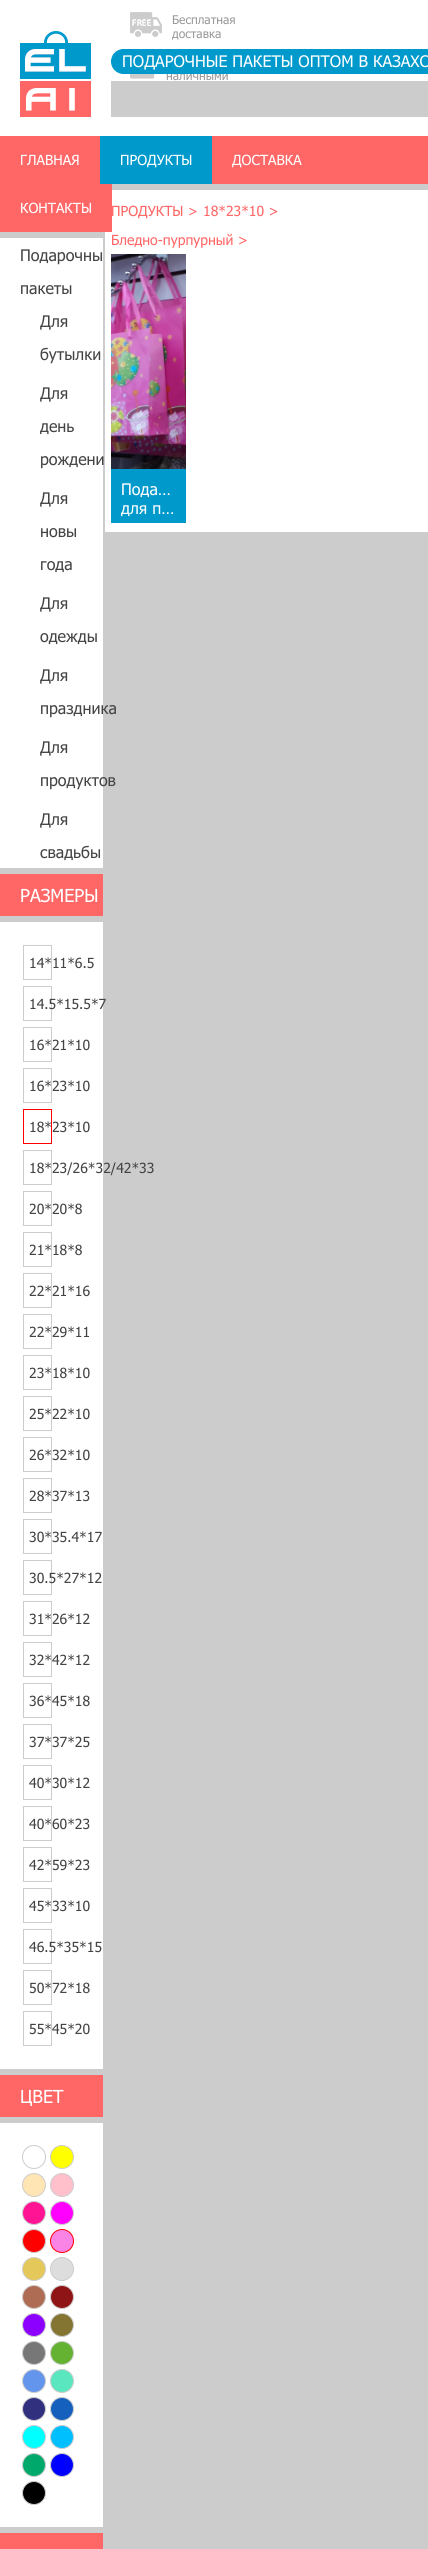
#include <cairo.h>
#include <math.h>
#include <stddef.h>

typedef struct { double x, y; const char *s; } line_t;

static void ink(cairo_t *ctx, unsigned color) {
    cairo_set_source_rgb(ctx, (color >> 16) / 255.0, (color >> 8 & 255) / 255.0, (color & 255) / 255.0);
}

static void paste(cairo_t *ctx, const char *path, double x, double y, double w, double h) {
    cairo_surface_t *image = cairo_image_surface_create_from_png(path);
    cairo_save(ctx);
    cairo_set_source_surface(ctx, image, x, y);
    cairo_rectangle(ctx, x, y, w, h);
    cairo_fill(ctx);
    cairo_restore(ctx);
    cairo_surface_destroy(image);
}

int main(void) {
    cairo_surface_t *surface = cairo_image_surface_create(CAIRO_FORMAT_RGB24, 428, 2549);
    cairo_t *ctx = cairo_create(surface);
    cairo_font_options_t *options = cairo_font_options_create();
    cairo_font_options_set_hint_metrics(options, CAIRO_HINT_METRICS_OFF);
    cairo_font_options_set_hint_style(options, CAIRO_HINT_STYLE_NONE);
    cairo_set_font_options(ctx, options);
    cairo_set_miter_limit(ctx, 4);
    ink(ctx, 0xCCCCCC);
    cairo_paint(ctx);
    ink(ctx, 0xFFFFFF);
    cairo_rectangle(ctx, 0, 0, 428, 136);
    cairo_fill(ctx);
    paste(ctx, "media/1.png", 20, 31, 71, 86);
    paste(ctx, "media/2.png", 130, 12, 32, 25);
    cairo_select_font_face(ctx, "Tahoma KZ", CAIRO_FONT_SLANT_NORMAL, CAIRO_FONT_WEIGHT_NORMAL);
    cairo_set_font_size(ctx, 12);
    ink(ctx, 0x999999);
    cairo_move_to(ctx, 172, 24);
    cairo_show_text(ctx, "Бесплатная");
    cairo_move_to(ctx, 172, 38);
    cairo_show_text(ctx, "доставка");
    paste(ctx, "media/3.png", 130, 74, 25, 5);
    cairo_move_to(ctx, 166, 80);
    cairo_show_text(ctx, "наличными");
    paste(ctx, "media/4.png", 111, 49, 317, 25);
    cairo_set_font_size(ctx, 16);
    ink(ctx, 0xFFFFFF);
    cairo_move_to(ctx, 122, 67);
    cairo_show_text(ctx, "ПОДАРОЧНЫЕ ПАКЕТЫ ОПТОМ В КАЗАХС");
    ink(ctx, 0xCCCCCC);
    cairo_rectangle(ctx, 111, 81, 317, 36);
    cairo_fill(ctx);
    ink(ctx, 0xFF6666);
    cairo_rectangle(ctx, 0, 136, 428, 48);
    cairo_fill(ctx);
    cairo_set_font_size(ctx, 14);
    ink(ctx, 0xFFFFFF);
    cairo_move_to(ctx, 20, 165);
    cairo_show_text(ctx, "ГЛАВНАЯ");
    ink(ctx, 0x0099CC);
    cairo_rectangle(ctx, 100, 136, 112, 48);
    cairo_fill(ctx);
    ink(ctx, 0xFFFFFF);
    cairo_move_to(ctx, 120, 165);
    cairo_show_text(ctx, "ПРОДУКТЫ");
    cairo_move_to(ctx, 232, 165);
    cairo_show_text(ctx, "ДОСТАВКА");
    cairo_rectangle(ctx, 105, 190, 323, 342);
    cairo_fill(ctx);
    ink(ctx, 0xFF6666);
    cairo_rectangle(ctx, 0, 184, 112, 48);
    cairo_fill(ctx);
    ink(ctx, 0xFFFFFF);
    cairo_move_to(ctx, 20, 213);
    cairo_show_text(ctx, "КОНТАКТЫ");
    cairo_rectangle(ctx, 0, 238, 103, 630);
    cairo_fill(ctx);
    cairo_set_font_size(ctx, 16);
    ink(ctx, 0x444444);
    {
        static const line_t items[] = {
            {20, 261, "Подарочны"},
            {20, 294, "пакеты"},
            {40, 327, "Для"},
            {40, 360, "бутылки"},
            {40, 399, "Для"},
            {40, 432, "день"},
            {40, 465, "рождени"},
            {40, 504, "Для"},
            {40, 537, "новы"},
            {40, 570, "года"},
            {40, 609, "Для"},
            {40, 642, "одежды"},
            {40, 681, "Для"},
            {40, 714, "праздника"},
            {40, 753, "Для"},
            {40, 786, "продуктов"},
            {40, 825, "Для"},
            {40, 858, "свадьбы"},
        };
        for (size_t i = 0; i < sizeof items / sizeof *items; i++) {
            cairo_move_to(ctx, items[i].x, items[i].y);
            cairo_show_text(ctx, items[i].s);
        }
    }
    ink(ctx, 0xFF6666);
    cairo_rectangle(ctx, 0, 874, 103, 42);
    cairo_fill(ctx);
    cairo_set_font_size(ctx, 18);
    ink(ctx, 0xFFFFFF);
    cairo_move_to(ctx, 20, 902);
    cairo_show_text(ctx, "РАЗМЕРЫ");
    cairo_rectangle(ctx, 0, 922, 103, 1147);
    cairo_fill(ctx);
    cairo_rectangle(ctx, 23.5, 945.5, 28, 34);
    ink(ctx, 0xCCCCCC);
    cairo_set_line_width(ctx, 1);
    cairo_stroke(ctx);
    cairo_set_font_size(ctx, 14);
    ink(ctx, 0x444444);
    cairo_move_to(ctx, 29, 968);
    cairo_show_text(ctx, "14*11*6.5");
    cairo_rectangle(ctx, 23.5, 986.5, 28, 34);
    ink(ctx, 0xCCCCCC);
    cairo_stroke(ctx);
    ink(ctx, 0x444444);
    cairo_move_to(ctx, 29, 1009);
    cairo_show_text(ctx, "14.5*15.5*7");
    cairo_rectangle(ctx, 23.5, 1027.5, 28, 34);
    ink(ctx, 0xCCCCCC);
    cairo_stroke(ctx);
    ink(ctx, 0x444444);
    cairo_move_to(ctx, 29, 1050);
    cairo_show_text(ctx, "16*21*10");
    cairo_rectangle(ctx, 23.5, 1068.5, 28, 34);
    ink(ctx, 0xCCCCCC);
    cairo_stroke(ctx);
    ink(ctx, 0x444444);
    cairo_move_to(ctx, 29, 1091);
    cairo_show_text(ctx, "16*23*10");
    cairo_rectangle(ctx, 23.5, 1109.5, 28, 34);
    ink(ctx, 0xFF0000);
    cairo_stroke(ctx);
    ink(ctx, 0x444444);
    cairo_move_to(ctx, 29, 1132);
    cairo_show_text(ctx, "18*23*10");
    cairo_rectangle(ctx, 23.5, 1150.5, 28, 34);
    ink(ctx, 0xCCCCCC);
    cairo_stroke(ctx);
    ink(ctx, 0x444444);
    cairo_move_to(ctx, 29, 1173);
    cairo_show_text(ctx, "18*23/26*32/42*33");
    cairo_rectangle(ctx, 23.5, 1191.5, 28, 34);
    ink(ctx, 0xCCCCCC);
    cairo_stroke(ctx);
    ink(ctx, 0x444444);
    cairo_move_to(ctx, 29, 1214);
    cairo_show_text(ctx, "20*20*8");
    cairo_rectangle(ctx, 23.5, 1232.5, 28, 34);
    ink(ctx, 0xCCCCCC);
    cairo_stroke(ctx);
    ink(ctx, 0x444444);
    cairo_move_to(ctx, 29, 1255);
    cairo_show_text(ctx, "21*18*8");
    cairo_rectangle(ctx, 23.5, 1273.5, 28, 34);
    ink(ctx, 0xCCCCCC);
    cairo_stroke(ctx);
    ink(ctx, 0x444444);
    cairo_move_to(ctx, 29, 1296);
    cairo_show_text(ctx, "22*21*16");
    cairo_rectangle(ctx, 23.5, 1314.5, 28, 34);
    ink(ctx, 0xCCCCCC);
    cairo_stroke(ctx);
    ink(ctx, 0x444444);
    cairo_move_to(ctx, 29, 1337);
    cairo_show_text(ctx, "22*29*11");
    cairo_rectangle(ctx, 23.5, 1355.5, 28, 34);
    ink(ctx, 0xCCCCCC);
    cairo_stroke(ctx);
    ink(ctx, 0x444444);
    cairo_move_to(ctx, 29, 1378);
    cairo_show_text(ctx, "23*18*10");
    cairo_rectangle(ctx, 23.5, 1396.5, 28, 34);
    ink(ctx, 0xCCCCCC);
    cairo_stroke(ctx);
    ink(ctx, 0x444444);
    cairo_move_to(ctx, 29, 1419);
    cairo_show_text(ctx, "25*22*10");
    cairo_rectangle(ctx, 23.5, 1437.5, 28, 34);
    ink(ctx, 0xCCCCCC);
    cairo_stroke(ctx);
    ink(ctx, 0x444444);
    cairo_move_to(ctx, 29, 1460);
    cairo_show_text(ctx, "26*32*10");
    cairo_rectangle(ctx, 23.5, 1478.5, 28, 34);
    ink(ctx, 0xCCCCCC);
    cairo_stroke(ctx);
    ink(ctx, 0x444444);
    cairo_move_to(ctx, 29, 1501);
    cairo_show_text(ctx, "28*37*13");
    cairo_rectangle(ctx, 23.5, 1519.5, 28, 34);
    ink(ctx, 0xCCCCCC);
    cairo_stroke(ctx);
    ink(ctx, 0x444444);
    cairo_move_to(ctx, 29, 1542);
    cairo_show_text(ctx, "30*35.4*17");
    cairo_rectangle(ctx, 23.5, 1560.5, 28, 34);
    ink(ctx, 0xCCCCCC);
    cairo_stroke(ctx);
    ink(ctx, 0x444444);
    cairo_move_to(ctx, 29, 1583);
    cairo_show_text(ctx, "30.5*27*12");
    cairo_rectangle(ctx, 23.5, 1601.5, 28, 34);
    ink(ctx, 0xCCCCCC);
    cairo_stroke(ctx);
    ink(ctx, 0x444444);
    cairo_move_to(ctx, 29, 1624);
    cairo_show_text(ctx, "31*26*12");
    cairo_rectangle(ctx, 23.5, 1642.5, 28, 34);
    ink(ctx, 0xCCCCCC);
    cairo_stroke(ctx);
    ink(ctx, 0x444444);
    cairo_move_to(ctx, 29, 1665);
    cairo_show_text(ctx, "32*42*12");
    cairo_rectangle(ctx, 23.5, 1683.5, 28, 34);
    ink(ctx, 0xCCCCCC);
    cairo_stroke(ctx);
    ink(ctx, 0x444444);
    cairo_move_to(ctx, 29, 1706);
    cairo_show_text(ctx, "36*45*18");
    cairo_rectangle(ctx, 23.5, 1724.5, 28, 34);
    ink(ctx, 0xCCCCCC);
    cairo_stroke(ctx);
    ink(ctx, 0x444444);
    cairo_move_to(ctx, 29, 1747);
    cairo_show_text(ctx, "37*37*25");
    cairo_rectangle(ctx, 23.5, 1765.5, 28, 34);
    ink(ctx, 0xCCCCCC);
    cairo_stroke(ctx);
    ink(ctx, 0x444444);
    cairo_move_to(ctx, 29, 1788);
    cairo_show_text(ctx, "40*30*12");
    cairo_rectangle(ctx, 23.5, 1806.5, 28, 34);
    ink(ctx, 0xCCCCCC);
    cairo_stroke(ctx);
    ink(ctx, 0x444444);
    cairo_move_to(ctx, 29, 1829);
    cairo_show_text(ctx, "40*60*23");
    cairo_rectangle(ctx, 23.5, 1847.5, 28, 34);
    ink(ctx, 0xCCCCCC);
    cairo_stroke(ctx);
    ink(ctx, 0x444444);
    cairo_move_to(ctx, 29, 1870);
    cairo_show_text(ctx, "42*59*23");
    cairo_rectangle(ctx, 23.5, 1888.5, 28, 34);
    ink(ctx, 0xCCCCCC);
    cairo_stroke(ctx);
    ink(ctx, 0x444444);
    cairo_move_to(ctx, 29, 1911);
    cairo_show_text(ctx, "45*33*10");
    cairo_rectangle(ctx, 23.5, 1929.5, 28, 34);
    ink(ctx, 0xCCCCCC);
    cairo_stroke(ctx);
    ink(ctx, 0x444444);
    cairo_move_to(ctx, 29, 1952);
    cairo_show_text(ctx, "46.5*35*15");
    cairo_rectangle(ctx, 23.5, 1970.5, 28, 34);
    ink(ctx, 0xCCCCCC);
    cairo_stroke(ctx);
    ink(ctx, 0x444444);
    cairo_move_to(ctx, 29, 1993);
    cairo_show_text(ctx, "50*72*18");
    cairo_rectangle(ctx, 23.5, 2011.5, 28, 34);
    ink(ctx, 0xCCCCCC);
    cairo_stroke(ctx);
    ink(ctx, 0x444444);
    cairo_move_to(ctx, 29, 2034);
    cairo_show_text(ctx, "55*45*20");
    ink(ctx, 0xFF6666);
    cairo_rectangle(ctx, 0, 2075, 103, 42);
    cairo_fill(ctx);
    cairo_set_font_size(ctx, 18);
    ink(ctx, 0xFFFFFF);
    cairo_move_to(ctx, 20, 2103);
    cairo_show_text(ctx, "ЦВЕТ");
    cairo_rectangle(ctx, 0, 2123, 103, 404);
    cairo_fill(ctx);
    cairo_arc(ctx, 34, 2157, 11.5, 0, 2 * M_PI);
    ink(ctx, 0xCCCCCC);
    cairo_stroke(ctx);
    ink(ctx, 0xFFFF00);
    cairo_arc(ctx, 62, 2157, 11.5, 0, 2 * M_PI);
    cairo_fill_preserve(ctx);
    ink(ctx, 0xCCCCCC);
    cairo_stroke(ctx);
    ink(ctx, 0xFFE5B4);
    cairo_arc(ctx, 34, 2185, 11.5, 0, 2 * M_PI);
    cairo_fill_preserve(ctx);
    ink(ctx, 0xCCCCCC);
    cairo_stroke(ctx);
    ink(ctx, 0xFFC0CB);
    cairo_arc(ctx, 62, 2185, 11.5, 0, 2 * M_PI);
    cairo_fill_preserve(ctx);
    ink(ctx, 0xCCCCCC);
    cairo_stroke(ctx);
    ink(ctx, 0xFF1493);
    cairo_arc(ctx, 34, 2213, 11.5, 0, 2 * M_PI);
    cairo_fill_preserve(ctx);
    ink(ctx, 0xCCCCCC);
    cairo_stroke(ctx);
    ink(ctx, 0xFF00FF);
    cairo_arc(ctx, 62, 2213, 11.5, 0, 2 * M_PI);
    cairo_fill_preserve(ctx);
    ink(ctx, 0xCCCCCC);
    cairo_stroke(ctx);
    ink(ctx, 0xFF0000);
    cairo_arc(ctx, 34, 2241, 11.5, 0, 2 * M_PI);
    cairo_fill_preserve(ctx);
    ink(ctx, 0xCCCCCC);
    cairo_stroke(ctx);
    ink(ctx, 0xF984E5);
    cairo_arc(ctx, 62, 2241, 11.5, 0, 2 * M_PI);
    cairo_fill_preserve(ctx);
    ink(ctx, 0xFF0000);
    cairo_stroke(ctx);
    ink(ctx, 0xE4C859);
    cairo_arc(ctx, 34, 2269, 11.5, 0, 2 * M_PI);
    cairo_fill_preserve(ctx);
    ink(ctx, 0xCCCCCC);
    cairo_stroke(ctx);
    ink(ctx, 0xDDDDDD);
    cairo_arc(ctx, 62, 2269, 11.5, 0, 2 * M_PI);
    cairo_fill_preserve(ctx);
    ink(ctx, 0xCCCCCC);
    cairo_stroke(ctx);
    ink(ctx, 0xAE6C54);
    cairo_arc(ctx, 34, 2297, 11.5, 0, 2 * M_PI);
    cairo_fill_preserve(ctx);
    ink(ctx, 0xCCCCCC);
    cairo_stroke(ctx);
    ink(ctx, 0x8F1416);
    cairo_arc(ctx, 62, 2297, 11.5, 0, 2 * M_PI);
    cairo_fill_preserve(ctx);
    ink(ctx, 0xCCCCCC);
    cairo_stroke(ctx);
    ink(ctx, 0x8B00FF);
    cairo_arc(ctx, 34, 2325, 11.5, 0, 2 * M_PI);
    cairo_fill_preserve(ctx);
    ink(ctx, 0xCCCCCC);
    cairo_stroke(ctx);
    ink(ctx, 0x847532);
    cairo_arc(ctx, 62, 2325, 11.5, 0, 2 * M_PI);
    cairo_fill_preserve(ctx);
    ink(ctx, 0xCCCCCC);
    cairo_stroke(ctx);
    ink(ctx, 0x777777);
    cairo_arc(ctx, 34, 2353, 11.5, 0, 2 * M_PI);
    cairo_fill_preserve(ctx);
    ink(ctx, 0xCCCCCC);
    cairo_stroke(ctx);
    ink(ctx, 0x65B232);
    cairo_arc(ctx, 62, 2353, 11.5, 0, 2 * M_PI);
    cairo_fill_preserve(ctx);
    ink(ctx, 0xCCCCCC);
    cairo_stroke(ctx);
    ink(ctx, 0x6495ED);
    cairo_arc(ctx, 34, 2381, 11.5, 0, 2 * M_PI);
    cairo_fill_preserve(ctx);
    ink(ctx, 0xCCCCCC);
    cairo_stroke(ctx);
    ink(ctx, 0x5AE6BF);
    cairo_arc(ctx, 62, 2381, 11.5, 0, 2 * M_PI);
    cairo_fill_preserve(ctx);
    ink(ctx, 0xCCCCCC);
    cairo_stroke(ctx);
    ink(ctx, 0x30307F);
    cairo_arc(ctx, 34, 2409, 11.5, 0, 2 * M_PI);
    cairo_fill_preserve(ctx);
    ink(ctx, 0xCCCCCC);
    cairo_stroke(ctx);
    ink(ctx, 0x1560BD);
    cairo_arc(ctx, 62, 2409, 11.5, 0, 2 * M_PI);
    cairo_fill_preserve(ctx);
    ink(ctx, 0xCCCCCC);
    cairo_stroke(ctx);
    ink(ctx, 0x00FFFF);
    cairo_arc(ctx, 34, 2437, 11.5, 0, 2 * M_PI);
    cairo_fill_preserve(ctx);
    ink(ctx, 0xCCCCCC);
    cairo_stroke(ctx);
    ink(ctx, 0x00BFFF);
    cairo_arc(ctx, 62, 2437, 11.5, 0, 2 * M_PI);
    cairo_fill_preserve(ctx);
    ink(ctx, 0xCCCCCC);
    cairo_stroke(ctx);
    ink(ctx, 0x00A86B);
    cairo_arc(ctx, 34, 2465, 11.5, 0, 2 * M_PI);
    cairo_fill_preserve(ctx);
    ink(ctx, 0xCCCCCC);
    cairo_stroke(ctx);
    ink(ctx, 0x0000FF);
    cairo_arc(ctx, 62, 2465, 11.5, 0, 2 * M_PI);
    cairo_fill_preserve(ctx);
    ink(ctx, 0xCCCCCC);
    cairo_stroke(ctx);
    ink(ctx, 0x000000);
    cairo_arc(ctx, 34, 2493, 11.5, 0, 2 * M_PI);
    cairo_fill_preserve(ctx);
    ink(ctx, 0xCCCCCC);
    cairo_stroke(ctx);
    ink(ctx, 0xFF6666);
    cairo_rectangle(ctx, 0, 2533, 103, 16);
    cairo_fill(ctx);
    cairo_set_font_size(ctx, 14);
    {
        static const line_t items[] = {
            {111, 216, "ПРОДУКТЫ >"},
            {203, 216, "18*23*10 >"},
            {111, 245, "Бледно-пурпурный >"},
        };
        for (size_t i = 0; i < sizeof items / sizeof *items; i++) {
            cairo_move_to(ctx, items[i].x, items[i].y);
            cairo_show_text(ctx, items[i].s);
        }
    }
    ink(ctx, 0x0099CC);
    cairo_rectangle(ctx, 111, 469, 75, 54);
    cairo_fill(ctx);
    paste(ctx, "media/5.png", 111, 254, 75, 215);
    cairo_set_font_size(ctx, 16);
    ink(ctx, 0xFFFFFF);
    cairo_move_to(ctx, 121, 495);
    cairo_show_text(ctx, "Пода…");
    cairo_move_to(ctx, 121, 514);
    cairo_show_text(ctx, "для п…");
    cairo_surface_write_to_png(surface, "image.png");
    cairo_font_options_destroy(options);
    cairo_destroy(ctx);
    cairo_surface_destroy(surface);
    return 0;
}
